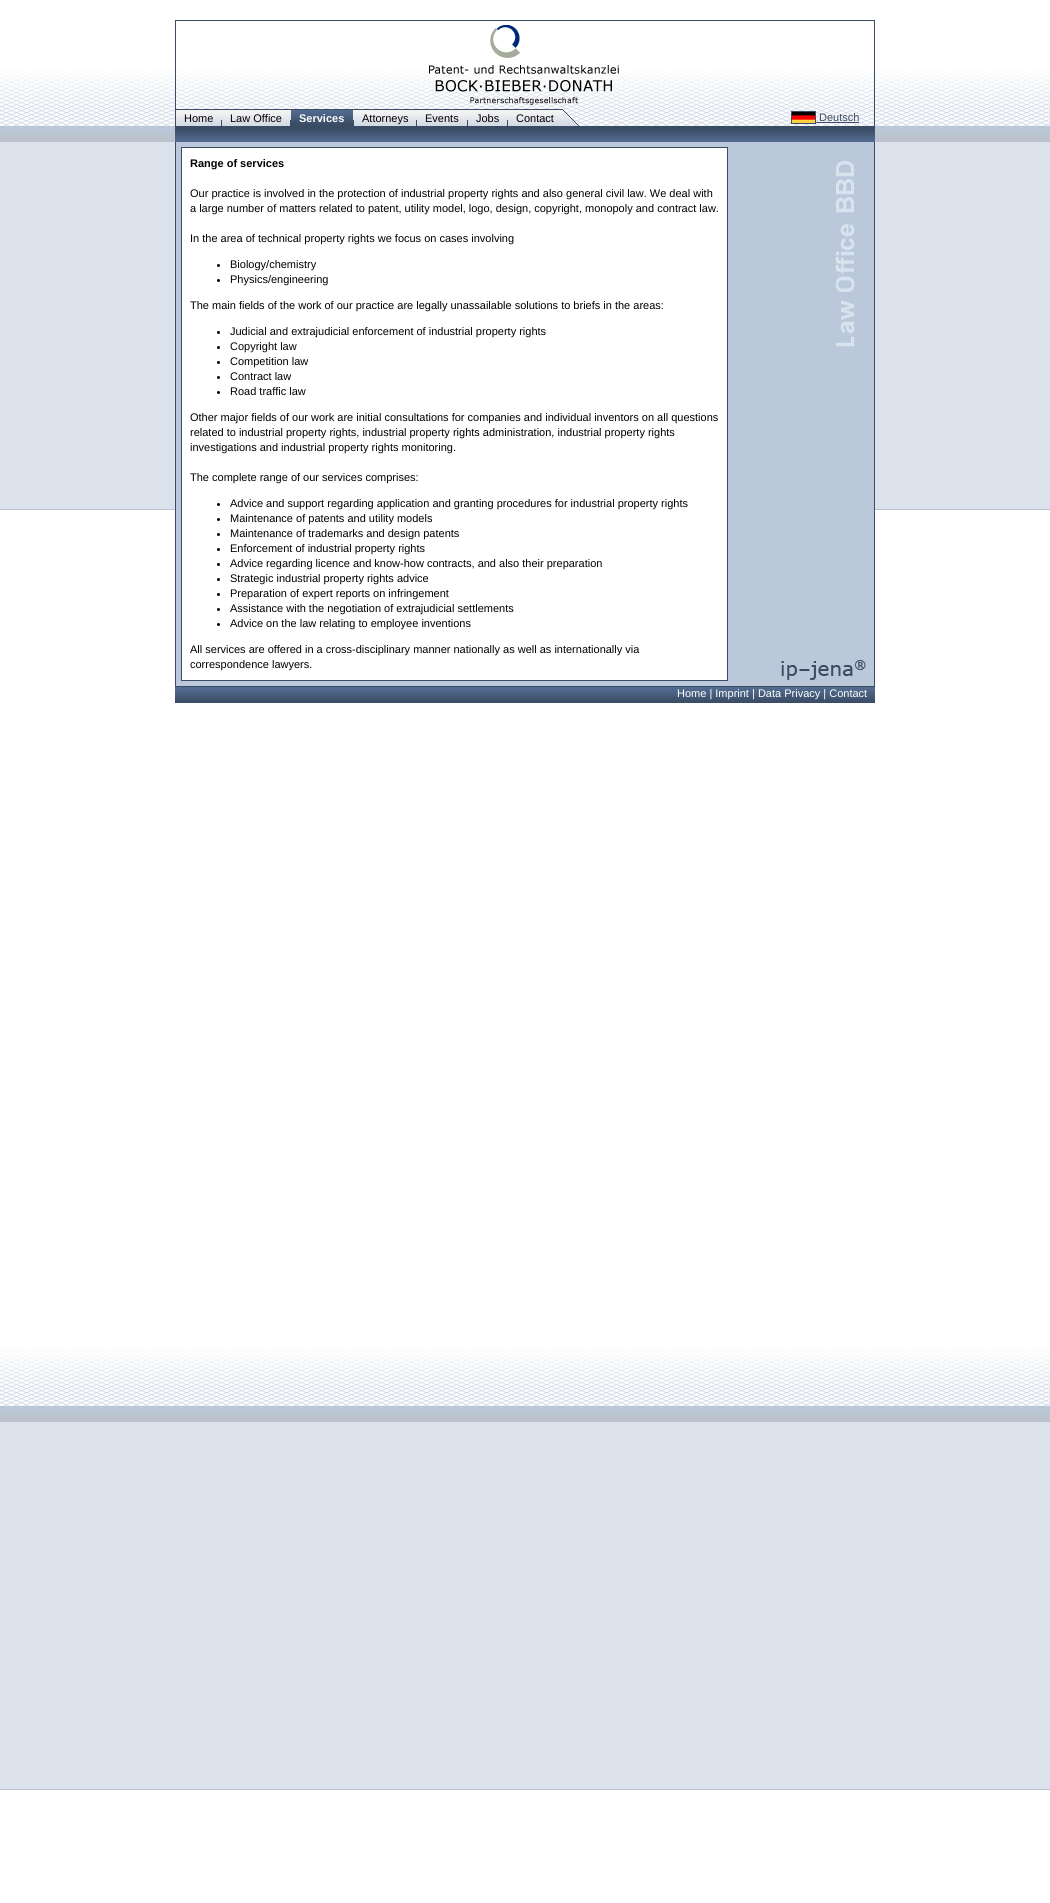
#include <cairo.h>
#include <math.h>
#include <stddef.h>

typedef struct { double x, y; const char *s; } line_t;
typedef struct { double x, y, w, h; unsigned color; } box_t;

static void ink(cairo_t *ctx, unsigned color) {
    cairo_set_source_rgb(ctx, (color >> 16) / 255.0, (color >> 8 & 255) / 255.0, (color & 255) / 255.0);
}

static void paste(cairo_t *ctx, const char *path, double x, double y, double w, double h) {
    cairo_surface_t *image = cairo_image_surface_create_from_png(path);
    cairo_save(ctx);
    cairo_set_source_surface(ctx, image, x, y);
    cairo_rectangle(ctx, x, y, w, h);
    cairo_fill(ctx);
    cairo_restore(ctx);
    cairo_surface_destroy(image);
}

int main(void) {
    cairo_surface_t *surface = cairo_image_surface_create(CAIRO_FORMAT_RGB24, 1050, 1903);
    cairo_t *ctx = cairo_create(surface);
    cairo_font_options_t *options = cairo_font_options_create();
    cairo_font_options_set_hint_metrics(options, CAIRO_HINT_METRICS_OFF);
    cairo_font_options_set_hint_style(options, CAIRO_HINT_STYLE_NONE);
    cairo_set_font_options(ctx, options);
    cairo_set_miter_limit(ctx, 4);
    ink(ctx, 0xFFFFFF);
    cairo_paint(ctx);
    paste(ctx, "media/1.png", 0, 70, 1050, 1720);
    {
        static const box_t items[] = {
            {175, 20, 700, 1, 0x3A4B64},
            {874, 20, 1, 106, 0x3A4B64},
            {175, 20, 1, 106, 0x3A4B64},
        };
        for (size_t i = 0; i < sizeof items / sizeof *items; i++) {
            ink(ctx, items[i].color);
            cairo_rectangle(ctx, items[i].x, items[i].y, items[i].w, items[i].h);
            cairo_fill(ctx);
        }
    }
    paste(ctx, "media/2.png", 429, 25, 190, 80);
    paste(ctx, "media/3.png", 176, 109, 45, 17);
    cairo_select_font_face(ctx, "Liberation Sans", CAIRO_FONT_SLANT_NORMAL, CAIRO_FONT_WEIGHT_NORMAL);
    cairo_set_font_size(ctx, 11);
    ink(ctx, 0x000000);
    cairo_move_to(ctx, 184, 122);
    cairo_show_text(ctx, "Home");
    paste(ctx, "media/4.png", 221, 109, 1, 17);
    paste(ctx, "media/5.png", 222, 109, 68, 17);
    cairo_move_to(ctx, 230, 122);
    cairo_show_text(ctx, "Law Office");
    paste(ctx, "media/4.png", 290, 109, 1, 17);
    paste(ctx, "media/6.png", 291, 109, 62, 17);
    cairo_select_font_face(ctx, "Liberation Sans", CAIRO_FONT_SLANT_NORMAL, CAIRO_FONT_WEIGHT_BOLD);
    ink(ctx, 0xFFFFFF);
    cairo_move_to(ctx, 299, 122);
    cairo_show_text(ctx, "Services");
    paste(ctx, "media/4.png", 353, 109, 1, 17);
    paste(ctx, "media/7.png", 354, 109, 62, 17);
    cairo_select_font_face(ctx, "Liberation Sans", CAIRO_FONT_SLANT_NORMAL, CAIRO_FONT_WEIGHT_NORMAL);
    ink(ctx, 0x000000);
    cairo_move_to(ctx, 362, 122);
    cairo_show_text(ctx, "Attorneys");
    paste(ctx, "media/4.png", 416, 109, 1, 17);
    paste(ctx, "media/8.png", 417, 109, 50, 17);
    cairo_move_to(ctx, 425, 122);
    cairo_show_text(ctx, "Events");
    paste(ctx, "media/4.png", 467, 109, 1, 17);
    paste(ctx, "media/9.png", 468, 109, 39, 17);
    cairo_move_to(ctx, 476, 122);
    cairo_show_text(ctx, "Jobs");
    paste(ctx, "media/4.png", 507, 109, 1, 17);
    paste(ctx, "media/10.png", 508, 109, 54, 17);
    cairo_move_to(ctx, 516, 122);
    cairo_show_text(ctx, "Contact");
    paste(ctx, "media/11.png", 562, 109, 17, 17);
    paste(ctx, "media/12.png", 791, 111, 25, 13);
    ink(ctx, 0x3A4B64);
    cairo_move_to(ctx, 819, 121);
    cairo_show_text(ctx, "Deutsch");
    cairo_rectangle(ctx, 816, 122, 43, 1);
    cairo_fill(ctx);
    paste(ctx, "media/13.png", 175, 126, 700, 16);
    {
        static const box_t items[] = {
            {176, 142, 698, 544, 0xBAC8D9},
            {874, 142, 1, 545, 0x3A4B64},
            {175, 686, 700, 1, 0x3A4B64},
            {175, 142, 1, 545, 0x3A4B64},
        };
        for (size_t i = 0; i < sizeof items / sizeof *items; i++) {
            ink(ctx, items[i].color);
            cairo_rectangle(ctx, items[i].x, items[i].y, items[i].w, items[i].h);
            cairo_fill(ctx);
        }
    }
    ink(ctx, 0xFFFFFF);
    cairo_rectangle(ctx, 181.5, 147.5, 546, 533);
    cairo_fill_preserve(ctx);
    ink(ctx, 0x3A4B64);
    cairo_set_line_width(ctx, 1);
    cairo_stroke(ctx);
    cairo_select_font_face(ctx, "Liberation Sans", CAIRO_FONT_SLANT_NORMAL, CAIRO_FONT_WEIGHT_BOLD);
    ink(ctx, 0x000000);
    cairo_move_to(ctx, 190, 167);
    cairo_show_text(ctx, "Range of services");
    cairo_select_font_face(ctx, "Liberation Sans", CAIRO_FONT_SLANT_NORMAL, CAIRO_FONT_WEIGHT_NORMAL);
    {
        static const line_t items[] = {
            {190, 197, "Our practice is involved in the protection of industrial property rights and also general civil law. We deal with"},
            {190, 212, "a large number of matters related to patent, utility model, logo, design, copyright, monopoly and contract law."},
            {190, 242, "In the area of technical property rights we focus on cases involving"},
        };
        for (size_t i = 0; i < sizeof items / sizeof *items; i++) {
            cairo_move_to(ctx, items[i].x, items[i].y);
            cairo_show_text(ctx, items[i].s);
        }
    }
    cairo_new_path(ctx);
    cairo_arc(ctx, 218.5, 265.5, 1.5, 0, 2 * M_PI);
    cairo_fill(ctx);
    cairo_move_to(ctx, 230, 268);
    cairo_show_text(ctx, "Biology/chemistry");
    cairo_new_path(ctx);
    cairo_arc(ctx, 218.5, 280.5, 1.5, 0, 2 * M_PI);
    cairo_fill(ctx);
    cairo_move_to(ctx, 230, 283);
    cairo_show_text(ctx, "Physics/engineering");
    cairo_move_to(ctx, 190, 309);
    cairo_show_text(ctx, "The main fields of the work of our practice are legally unassailable solutions to briefs in the areas:");
    cairo_new_path(ctx);
    cairo_arc(ctx, 218.5, 332.5, 1.5, 0, 2 * M_PI);
    cairo_fill(ctx);
    cairo_move_to(ctx, 230, 335);
    cairo_show_text(ctx, "Judicial and extrajudicial enforcement of industrial property rights");
    cairo_new_path(ctx);
    cairo_arc(ctx, 218.5, 347.5, 1.5, 0, 2 * M_PI);
    cairo_fill(ctx);
    cairo_move_to(ctx, 230, 350);
    cairo_show_text(ctx, "Copyright law");
    cairo_new_path(ctx);
    cairo_arc(ctx, 218.5, 362.5, 1.5, 0, 2 * M_PI);
    cairo_fill(ctx);
    cairo_move_to(ctx, 230, 365);
    cairo_show_text(ctx, "Competition law");
    cairo_new_path(ctx);
    cairo_arc(ctx, 218.5, 377.5, 1.5, 0, 2 * M_PI);
    cairo_fill(ctx);
    cairo_move_to(ctx, 230, 380);
    cairo_show_text(ctx, "Contract law");
    cairo_new_path(ctx);
    cairo_arc(ctx, 218.5, 392.5, 1.5, 0, 2 * M_PI);
    cairo_fill(ctx);
    {
        static const line_t items[] = {
            {230, 395, "Road traffic law"},
            {190, 421, "Other major fields of our work are initial consultations for companies and individual inventors on all questions"},
            {190, 436, "related to industrial property rights, industrial property rights administration, industrial property rights"},
            {190, 451, "investigations and industrial property rights monitoring."},
            {190, 481, "The complete range of our services comprises:"},
        };
        for (size_t i = 0; i < sizeof items / sizeof *items; i++) {
            cairo_move_to(ctx, items[i].x, items[i].y);
            cairo_show_text(ctx, items[i].s);
        }
    }
    cairo_new_path(ctx);
    cairo_arc(ctx, 218.5, 504.5, 1.5, 0, 2 * M_PI);
    cairo_fill(ctx);
    cairo_move_to(ctx, 230, 507);
    cairo_show_text(ctx, "Advice and support regarding application and granting procedures for industrial property rights");
    cairo_new_path(ctx);
    cairo_arc(ctx, 218.5, 519.5, 1.5, 0, 2 * M_PI);
    cairo_fill(ctx);
    cairo_move_to(ctx, 230, 522);
    cairo_show_text(ctx, "Maintenance of patents and utility models");
    cairo_new_path(ctx);
    cairo_arc(ctx, 218.5, 534.5, 1.5, 0, 2 * M_PI);
    cairo_fill(ctx);
    cairo_move_to(ctx, 230, 537);
    cairo_show_text(ctx, "Maintenance of trademarks and design patents");
    cairo_new_path(ctx);
    cairo_arc(ctx, 218.5, 549.5, 1.5, 0, 2 * M_PI);
    cairo_fill(ctx);
    cairo_move_to(ctx, 230, 552);
    cairo_show_text(ctx, "Enforcement of industrial property rights");
    cairo_new_path(ctx);
    cairo_arc(ctx, 218.5, 564.5, 1.5, 0, 2 * M_PI);
    cairo_fill(ctx);
    cairo_move_to(ctx, 230, 567);
    cairo_show_text(ctx, "Advice regarding licence and know-how contracts, and also their preparation");
    cairo_new_path(ctx);
    cairo_arc(ctx, 218.5, 579.5, 1.5, 0, 2 * M_PI);
    cairo_fill(ctx);
    cairo_move_to(ctx, 230, 582);
    cairo_show_text(ctx, "Strategic industrial property rights advice");
    cairo_new_path(ctx);
    cairo_arc(ctx, 218.5, 594.5, 1.5, 0, 2 * M_PI);
    cairo_fill(ctx);
    cairo_move_to(ctx, 230, 597);
    cairo_show_text(ctx, "Preparation of expert reports on infringement");
    cairo_new_path(ctx);
    cairo_arc(ctx, 218.5, 609.5, 1.5, 0, 2 * M_PI);
    cairo_fill(ctx);
    cairo_move_to(ctx, 230, 612);
    cairo_show_text(ctx, "Assistance with the negotiation of extrajudicial settlements");
    cairo_new_path(ctx);
    cairo_arc(ctx, 218.5, 624.5, 1.5, 0, 2 * M_PI);
    cairo_fill(ctx);
    {
        static const line_t items[] = {
            {230, 627, "Advice on the law relating to employee inventions"},
            {190, 653, "All services are offered in a cross-disciplinary manner nationally as well as internationally via"},
            {190, 668, "correspondence lawyers."},
        };
        for (size_t i = 0; i < sizeof items / sizeof *items; i++) {
            cairo_move_to(ctx, items[i].x, items[i].y);
            cairo_show_text(ctx, items[i].s);
        }
    }
    paste(ctx, "media/14.png", 835, 161, 27, 186);
    paste(ctx, "media/15.png", 781, 660, 85, 20);
    paste(ctx, "media/16.png", 175, 687, 700, 16);
    ink(ctx, 0xFFFFFF);
    cairo_move_to(ctx, 677, 697);
    cairo_show_text(ctx, "Home | Imprint | Data Privacy | Contact");
    cairo_surface_write_to_png(surface, "image.png");
    cairo_font_options_destroy(options);
    cairo_destroy(ctx);
    cairo_surface_destroy(surface);
    return 0;
}
